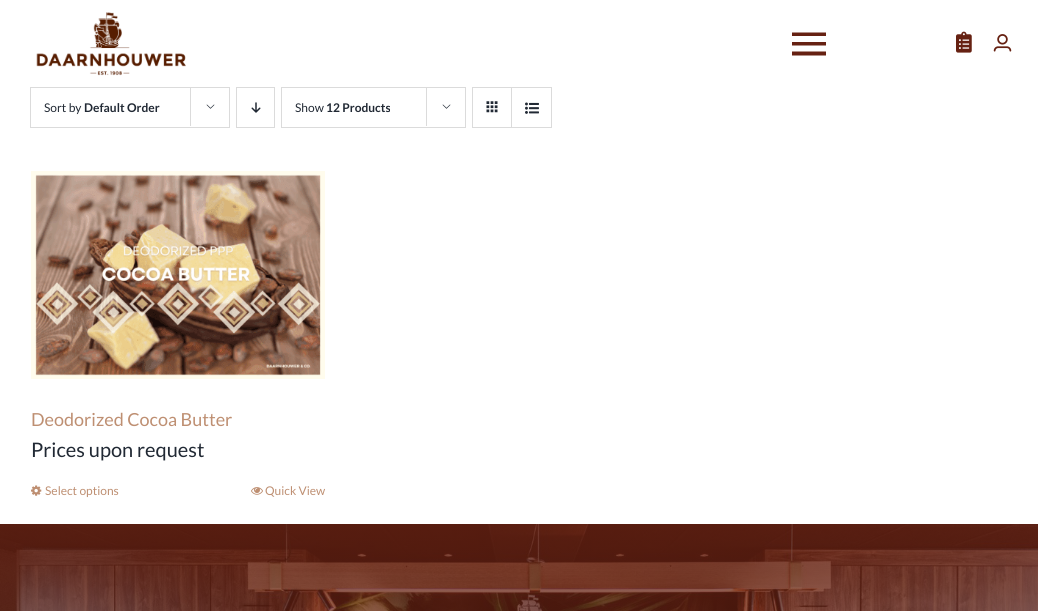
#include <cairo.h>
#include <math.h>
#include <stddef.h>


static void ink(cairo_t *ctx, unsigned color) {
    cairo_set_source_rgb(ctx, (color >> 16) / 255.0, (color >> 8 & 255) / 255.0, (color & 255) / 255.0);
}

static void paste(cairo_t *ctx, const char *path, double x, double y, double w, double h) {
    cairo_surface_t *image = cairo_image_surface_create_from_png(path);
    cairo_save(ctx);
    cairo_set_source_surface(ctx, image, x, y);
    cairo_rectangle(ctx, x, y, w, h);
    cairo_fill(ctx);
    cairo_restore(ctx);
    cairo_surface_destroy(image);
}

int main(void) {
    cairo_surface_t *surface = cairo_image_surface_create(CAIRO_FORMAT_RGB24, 1038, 611);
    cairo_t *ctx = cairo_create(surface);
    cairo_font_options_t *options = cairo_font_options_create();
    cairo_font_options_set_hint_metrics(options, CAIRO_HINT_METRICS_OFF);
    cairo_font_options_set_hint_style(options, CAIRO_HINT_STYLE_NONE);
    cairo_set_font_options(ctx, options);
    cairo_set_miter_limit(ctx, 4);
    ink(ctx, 0xFFFFFF);
    cairo_paint(ctx);
    paste(ctx, "media/1.png", 36, 12, 150, 64);
    ink(ctx, 0x662112);
    cairo_new_path(ctx);
    cairo_move_to(ctx, 792, 32.5);
    cairo_line_to(ctx, 826, 32.5);
    cairo_line_to(ctx, 826, 36);
    cairo_line_to(ctx, 792, 36);
    cairo_close_path(ctx);
    cairo_move_to(ctx, 792, 45.5);
    cairo_line_to(ctx, 792, 42);
    cairo_line_to(ctx, 826, 42);
    cairo_line_to(ctx, 826, 45.5);
    cairo_close_path(ctx);
    cairo_move_to(ctx, 792, 55.5);
    cairo_line_to(ctx, 792, 51.5);
    cairo_line_to(ctx, 826, 51.5);
    cairo_line_to(ctx, 826, 55.5);
    cairo_close_path(ctx);
    cairo_fill(ctx);
    paste(ctx, "media/2.png", 956, 31, 16, 22);
    paste(ctx, "media/3.png", 993, 34, 19, 18);
    cairo_rectangle(ctx, 30.5, 87.5, 199, 40);
    ink(ctx, 0xDBDBDB);
    cairo_set_line_width(ctx, 1);
    cairo_stroke(ctx);
    cairo_select_font_face(ctx, "Lato", CAIRO_FONT_SLANT_NORMAL, CAIRO_FONT_WEIGHT_NORMAL);
    cairo_set_font_size(ctx, 12);
    ink(ctx, 0x212934);
    cairo_move_to(ctx, 44, 112);
    cairo_show_text(ctx, "Sort by");
    cairo_select_font_face(ctx, "Lato", CAIRO_FONT_SLANT_NORMAL, CAIRO_FONT_WEIGHT_BOLD);
    cairo_move_to(ctx, 84, 112);
    cairo_show_text(ctx, "Default Order");
    ink(ctx, 0xDBDBDB);
    cairo_rectangle(ctx, 190, 87, 1, 39);
    cairo_fill(ctx);
    paste(ctx, "media/4.png", 206, 104, 9, 5);
    cairo_rectangle(ctx, 236.5, 87.5, 38, 40);
    cairo_stroke(ctx);
    paste(ctx, "media/5.png", 251, 102, 10, 11);
    cairo_rectangle(ctx, 281.5, 87.5, 184, 40);
    cairo_stroke(ctx);
    cairo_select_font_face(ctx, "Lato", CAIRO_FONT_SLANT_NORMAL, CAIRO_FONT_WEIGHT_NORMAL);
    ink(ctx, 0x212934);
    cairo_move_to(ctx, 295, 112);
    cairo_show_text(ctx, "Show");
    cairo_select_font_face(ctx, "Lato", CAIRO_FONT_SLANT_NORMAL, CAIRO_FONT_WEIGHT_BOLD);
    cairo_move_to(ctx, 326, 112);
    cairo_show_text(ctx, "12 Products");
    ink(ctx, 0xDBDBDB);
    cairo_rectangle(ctx, 426, 87, 1, 39);
    cairo_fill(ctx);
    paste(ctx, "media/4.png", 442, 104, 9, 5);
    cairo_rectangle(ctx, 472.5, 87.5, 79, 40);
    cairo_stroke(ctx);
    cairo_rectangle(ctx, 511, 88, 1, 39);
    cairo_fill(ctx);
    paste(ctx, "media/6.png", 486, 101, 12, 12);
    paste(ctx, "media/7.png", 525, 102, 14, 12);
    paste(ctx, "media/8.png", 31, 171, 294, 208);
    cairo_select_font_face(ctx, "Lato", CAIRO_FONT_SLANT_NORMAL, CAIRO_FONT_WEIGHT_NORMAL);
    cairo_set_font_size(ctx, 18);
    ink(ctx, 0xBE8F72);
    cairo_move_to(ctx, 31, 426);
    cairo_show_text(ctx, "Deodorized Cocoa Butter");
    cairo_set_font_size(ctx, 20);
    ink(ctx, 0x212934);
    cairo_move_to(ctx, 31, 457);
    cairo_show_text(ctx, "Prices upon request");
    paste(ctx, "media/9.png", 31, 485, 11, 11);
    cairo_set_font_size(ctx, 12);
    ink(ctx, 0xBE8F72);
    cairo_move_to(ctx, 45, 495);
    cairo_show_text(ctx, "Select options");
    paste(ctx, "media/10.png", 251, 487, 12, 8);
    cairo_move_to(ctx, 265, 495);
    cairo_show_text(ctx, "Quick View");
    paste(ctx, "media/11.png", 0, 524, 1038, 87);
    cairo_surface_write_to_png(surface, "image.png");
    cairo_font_options_destroy(options);
    cairo_destroy(ctx);
    cairo_surface_destroy(surface);
    return 0;
}
